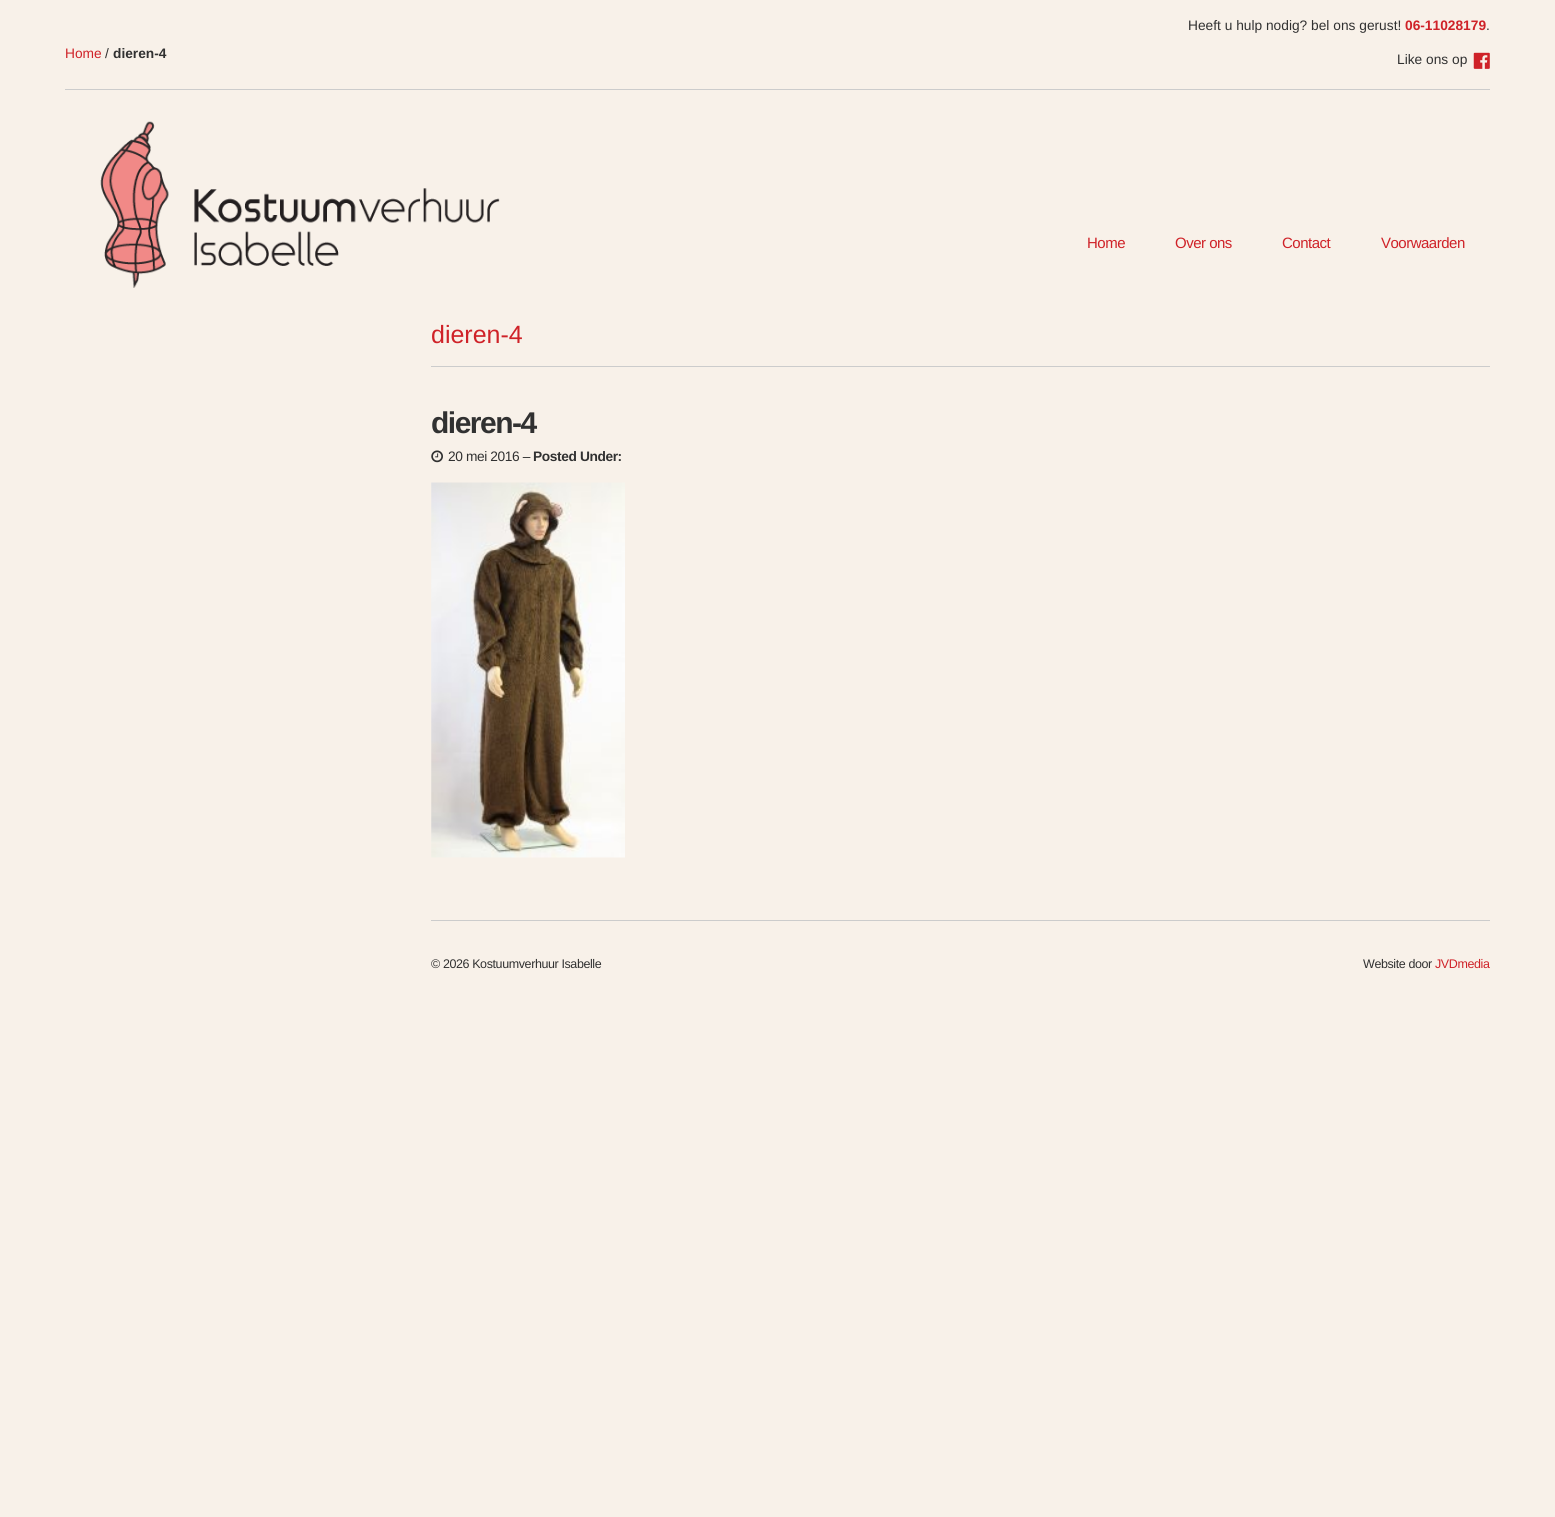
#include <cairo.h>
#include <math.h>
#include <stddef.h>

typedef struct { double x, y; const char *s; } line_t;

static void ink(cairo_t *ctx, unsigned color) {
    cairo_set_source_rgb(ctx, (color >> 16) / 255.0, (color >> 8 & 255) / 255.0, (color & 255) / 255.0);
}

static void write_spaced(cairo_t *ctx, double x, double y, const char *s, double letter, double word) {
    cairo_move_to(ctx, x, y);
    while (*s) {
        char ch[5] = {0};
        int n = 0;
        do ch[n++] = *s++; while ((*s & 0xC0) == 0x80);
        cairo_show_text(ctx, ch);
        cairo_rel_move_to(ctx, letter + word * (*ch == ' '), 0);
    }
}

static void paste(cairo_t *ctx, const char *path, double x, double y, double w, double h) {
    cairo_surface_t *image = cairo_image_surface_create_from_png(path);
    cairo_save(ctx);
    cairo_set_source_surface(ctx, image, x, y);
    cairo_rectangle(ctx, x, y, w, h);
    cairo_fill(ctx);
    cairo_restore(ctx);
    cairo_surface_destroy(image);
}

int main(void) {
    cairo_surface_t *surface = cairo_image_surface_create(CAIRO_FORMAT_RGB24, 1555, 1517);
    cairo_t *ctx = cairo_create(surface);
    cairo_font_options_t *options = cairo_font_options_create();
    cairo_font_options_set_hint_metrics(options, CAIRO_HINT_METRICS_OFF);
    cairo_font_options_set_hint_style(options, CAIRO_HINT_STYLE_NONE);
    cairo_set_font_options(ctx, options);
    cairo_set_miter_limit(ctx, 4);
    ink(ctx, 0xF8F1E9);
    cairo_paint(ctx);
    ink(ctx, 0xCCCCCC);
    cairo_rectangle(ctx, 65, 89, 1425, 1);
    cairo_fill(ctx);
    cairo_select_font_face(ctx, "Liberation Sans", CAIRO_FONT_SLANT_NORMAL, CAIRO_FONT_WEIGHT_NORMAL);
    cairo_set_font_size(ctx, 13.75);
    ink(ctx, 0xCF2228);
    cairo_move_to(ctx, 65, 58);
    cairo_show_text(ctx, "Home");
    ink(ctx, 0x313131);
    cairo_move_to(ctx, 105, 58);
    cairo_show_text(ctx, "/");
    cairo_select_font_face(ctx, "Liberation Sans", CAIRO_FONT_SLANT_NORMAL, CAIRO_FONT_WEIGHT_BOLD);
    cairo_move_to(ctx, 113, 58);
    cairo_show_text(ctx, "dieren-4");
    cairo_select_font_face(ctx, "Liberation Sans", CAIRO_FONT_SLANT_NORMAL, CAIRO_FONT_WEIGHT_NORMAL);
    cairo_move_to(ctx, 1188, 30);
    cairo_show_text(ctx, "Heeft u hulp nodig? bel ons gerust!");
    cairo_select_font_face(ctx, "Liberation Sans", CAIRO_FONT_SLANT_NORMAL, CAIRO_FONT_WEIGHT_BOLD);
    ink(ctx, 0xCF2228);
    cairo_move_to(ctx, 1405, 30);
    cairo_show_text(ctx, "06-11028179");
    cairo_select_font_face(ctx, "Liberation Sans", CAIRO_FONT_SLANT_NORMAL, CAIRO_FONT_WEIGHT_NORMAL);
    ink(ctx, 0x313131);
    cairo_move_to(ctx, 1486, 30);
    cairo_show_text(ctx, ".");
    cairo_move_to(ctx, 1397, 64);
    cairo_show_text(ctx, "Like ons op");
    paste(ctx, "media/1.png", 1473, 52, 17, 17);
    paste(ctx, "media/2.png", 100, 121, 400, 167);
    cairo_set_font_size(ctx, 15);
    ink(ctx, 0xCF2228);
    {
        static const line_t items[] = {
            {1087, 248, "Home"},
            {1175, 248, "Over ons"},
            {1282, 248, "Contact"},
            {1381, 248, "Voorwaarden"},
        };
        for (size_t i = 0; i < sizeof items / sizeof *items; i++) {
            write_spaced(ctx, items[i].x, items[i].y, items[i].s, -0.5, 0);
        }
    }
    ink(ctx, 0xCCCCCC);
    cairo_rectangle(ctx, 431, 366, 1059, 1);
    cairo_fill(ctx);
    cairo_set_font_size(ctx, 25);
    ink(ctx, 0xCF2228);
    cairo_move_to(ctx, 431, 343);
    cairo_show_text(ctx, "dieren-4");
    cairo_select_font_face(ctx, "Liberation Sans", CAIRO_FONT_SLANT_NORMAL, CAIRO_FONT_WEIGHT_BOLD);
    cairo_set_font_size(ctx, 30);
    ink(ctx, 0x313131);
    write_spaced(ctx, 431, 433, "dieren-4", -1.5, 0);
    paste(ctx, "media/3.png", 431, 450, 12, 13);
    cairo_select_font_face(ctx, "Liberation Sans", CAIRO_FONT_SLANT_NORMAL, CAIRO_FONT_WEIGHT_NORMAL);
    cairo_set_font_size(ctx, 13.75);
    write_spaced(ctx, 448, 461, "20 mei 2016 –", -0.4, 0);
    cairo_select_font_face(ctx, "Liberation Sans", CAIRO_FONT_SLANT_NORMAL, CAIRO_FONT_WEIGHT_BOLD);
    write_spaced(ctx, 533, 461, "Posted Under:", -0.4, 0);
    paste(ctx, "media/4.png", 431, 482, 194, 376);
    ink(ctx, 0xCCCCCC);
    cairo_rectangle(ctx, 431, 920, 1059, 1);
    cairo_fill(ctx);
    cairo_select_font_face(ctx, "Liberation Sans", CAIRO_FONT_SLANT_NORMAL, CAIRO_FONT_WEIGHT_NORMAL);
    cairo_set_font_size(ctx, 12.5);
    ink(ctx, 0x313131);
    write_spaced(ctx, 431, 968, "© 2026 Kostuumverhuur Isabelle", -0.4, 0);
    write_spaced(ctx, 1363, 968, "Website door", -0.4, 0);
    ink(ctx, 0xCF2228);
    write_spaced(ctx, 1435, 968, "JVDmedia", -0.4, 0);
    cairo_surface_write_to_png(surface, "image.png");
    cairo_font_options_destroy(options);
    cairo_destroy(ctx);
    cairo_surface_destroy(surface);
    return 0;
}
